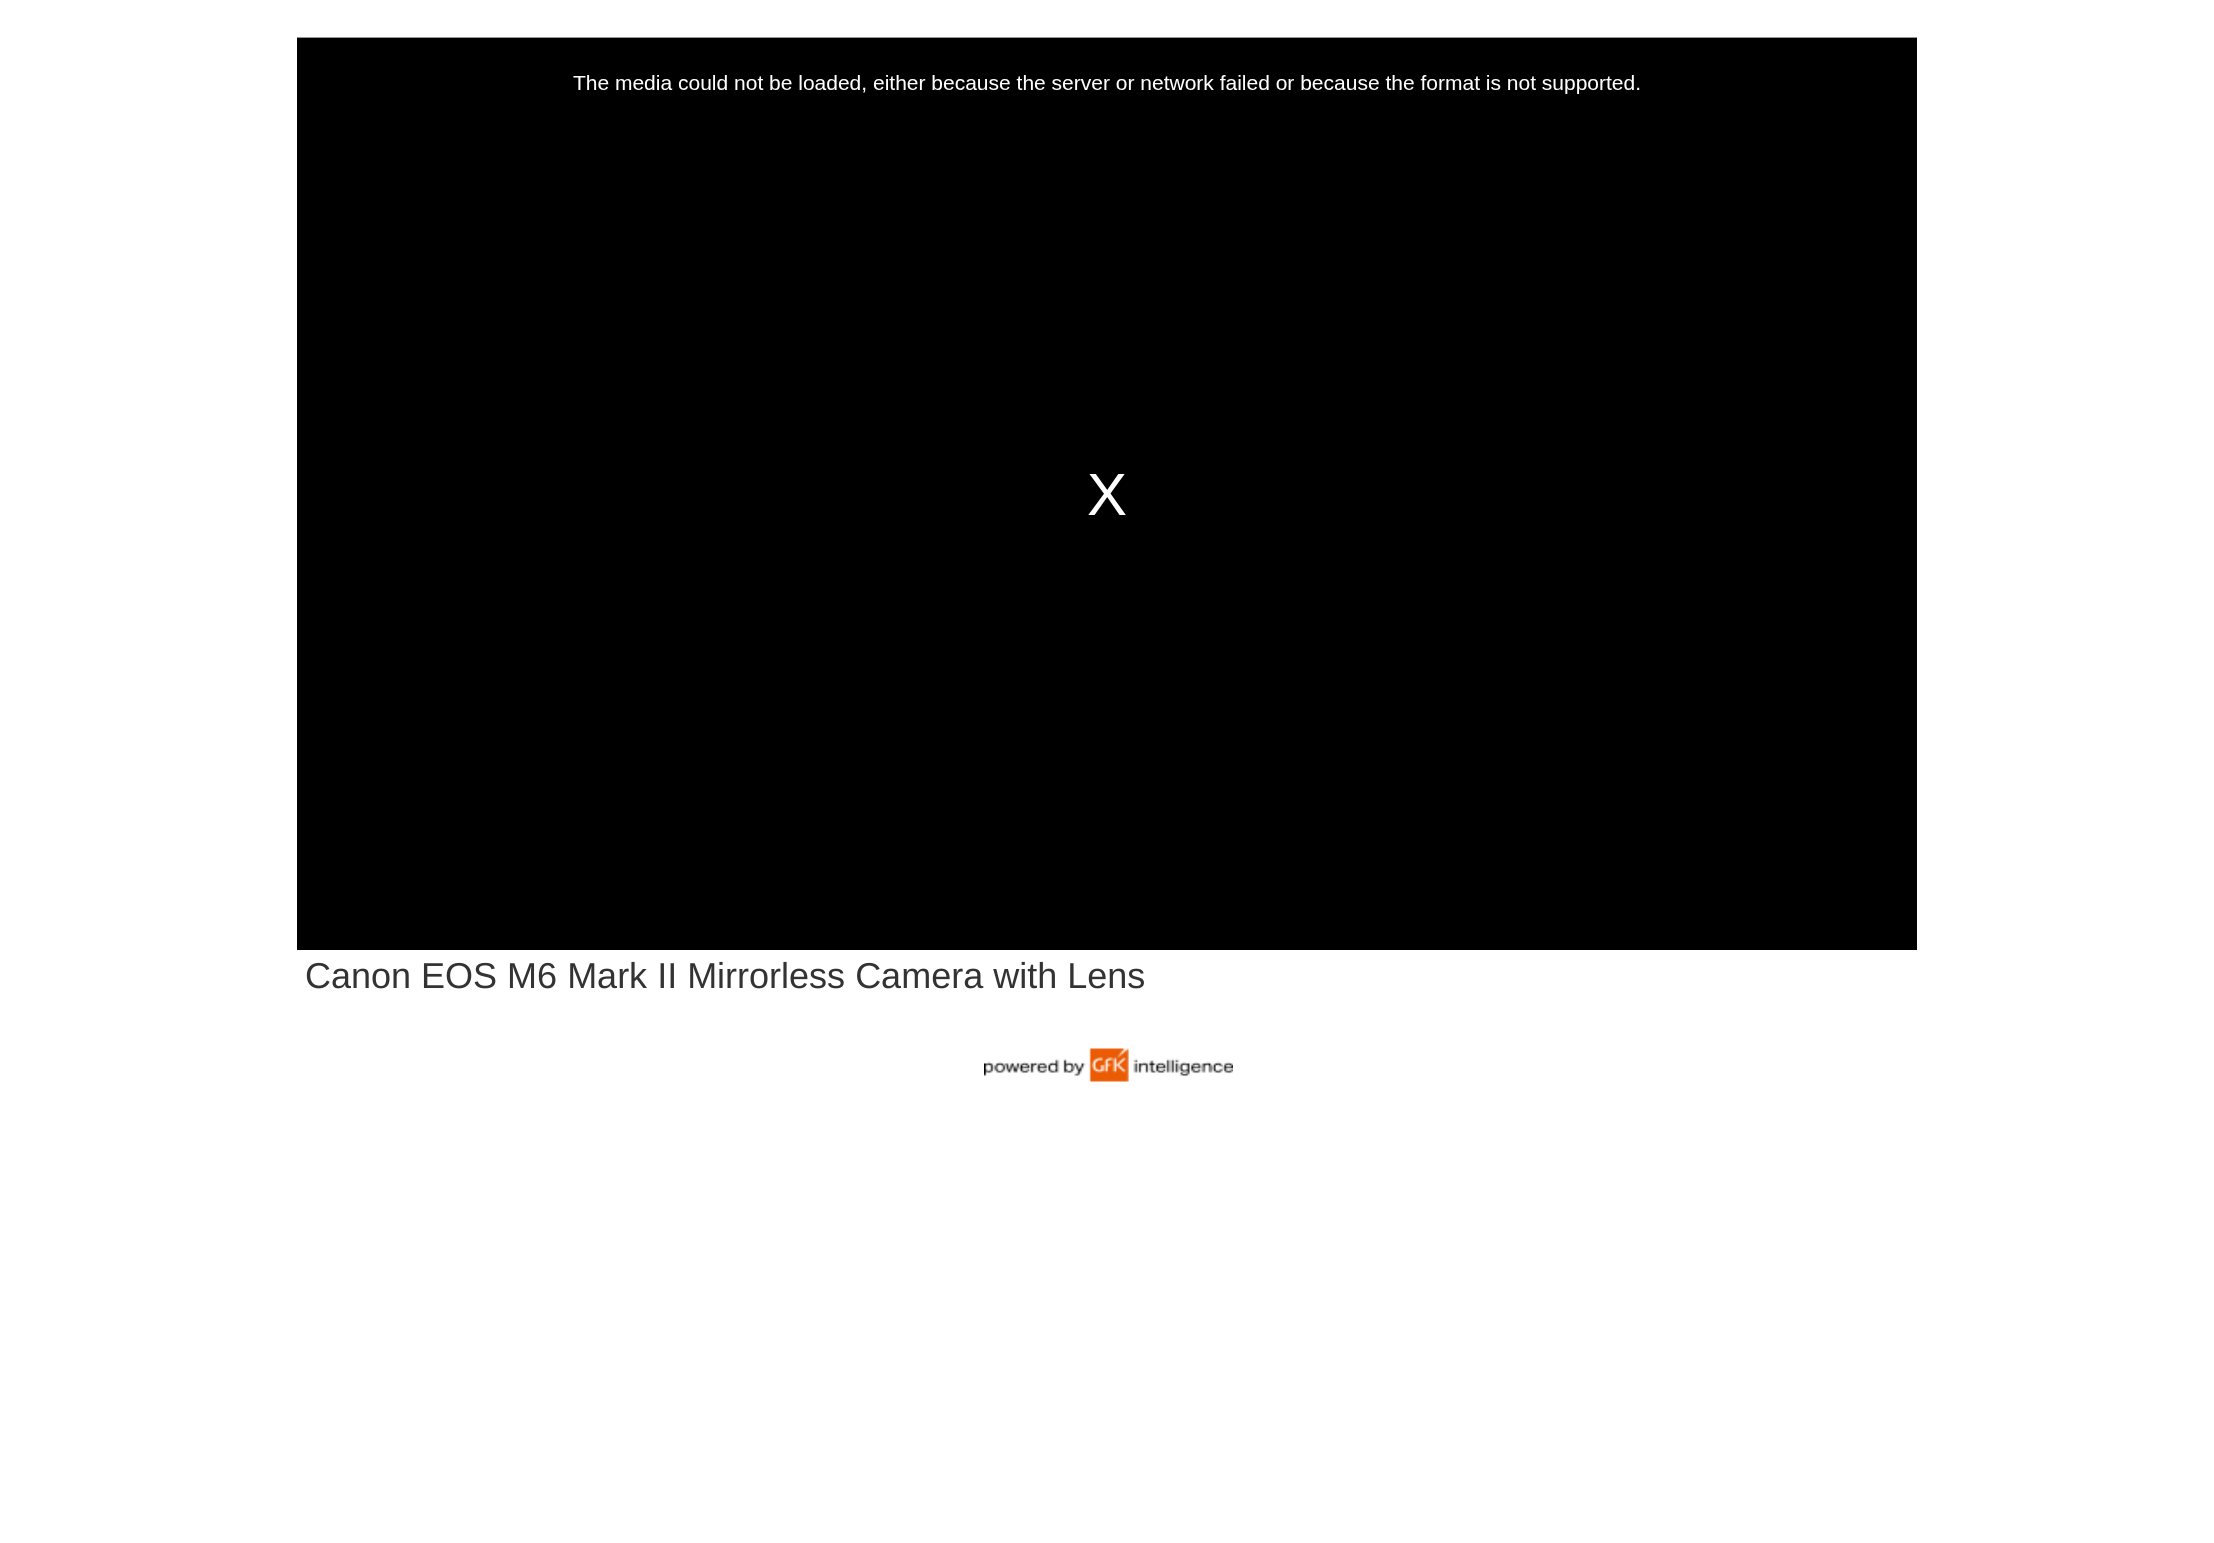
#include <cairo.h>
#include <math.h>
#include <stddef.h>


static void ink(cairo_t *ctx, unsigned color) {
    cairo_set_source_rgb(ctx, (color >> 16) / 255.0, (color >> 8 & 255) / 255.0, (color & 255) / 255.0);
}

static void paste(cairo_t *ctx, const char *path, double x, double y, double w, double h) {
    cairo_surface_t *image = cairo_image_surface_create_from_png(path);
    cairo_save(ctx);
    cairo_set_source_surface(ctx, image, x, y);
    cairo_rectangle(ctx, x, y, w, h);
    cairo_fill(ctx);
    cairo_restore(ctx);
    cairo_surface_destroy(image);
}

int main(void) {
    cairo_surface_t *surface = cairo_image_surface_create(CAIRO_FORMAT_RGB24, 2214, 1543);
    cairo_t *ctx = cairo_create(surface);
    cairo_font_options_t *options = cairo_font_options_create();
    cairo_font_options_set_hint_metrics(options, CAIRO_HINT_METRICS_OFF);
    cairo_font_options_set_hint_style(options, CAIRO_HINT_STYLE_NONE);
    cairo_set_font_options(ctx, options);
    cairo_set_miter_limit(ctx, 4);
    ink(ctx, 0xFFFFFF);
    cairo_paint(ctx);
    ink(ctx, 0x000000);
    cairo_rectangle(ctx, 297, 515, 1620, 435);
    cairo_fill(ctx);
    paste(ctx, "media/1.png", 297, 37, 1620, 478);
    cairo_select_font_face(ctx, "Liberation Sans", CAIRO_FONT_SLANT_NORMAL, CAIRO_FONT_WEIGHT_NORMAL);
    cairo_set_font_size(ctx, 36);
    ink(ctx, 0x333333);
    cairo_move_to(ctx, 305, 988);
    cairo_show_text(ctx, "Canon EOS M6 Mark II Mirrorless Camera with Lens");
    paste(ctx, "media/2.png", 984, 1048, 249, 34);
    cairo_surface_write_to_png(surface, "image.png");
    cairo_font_options_destroy(options);
    cairo_destroy(ctx);
    cairo_surface_destroy(surface);
    return 0;
}
